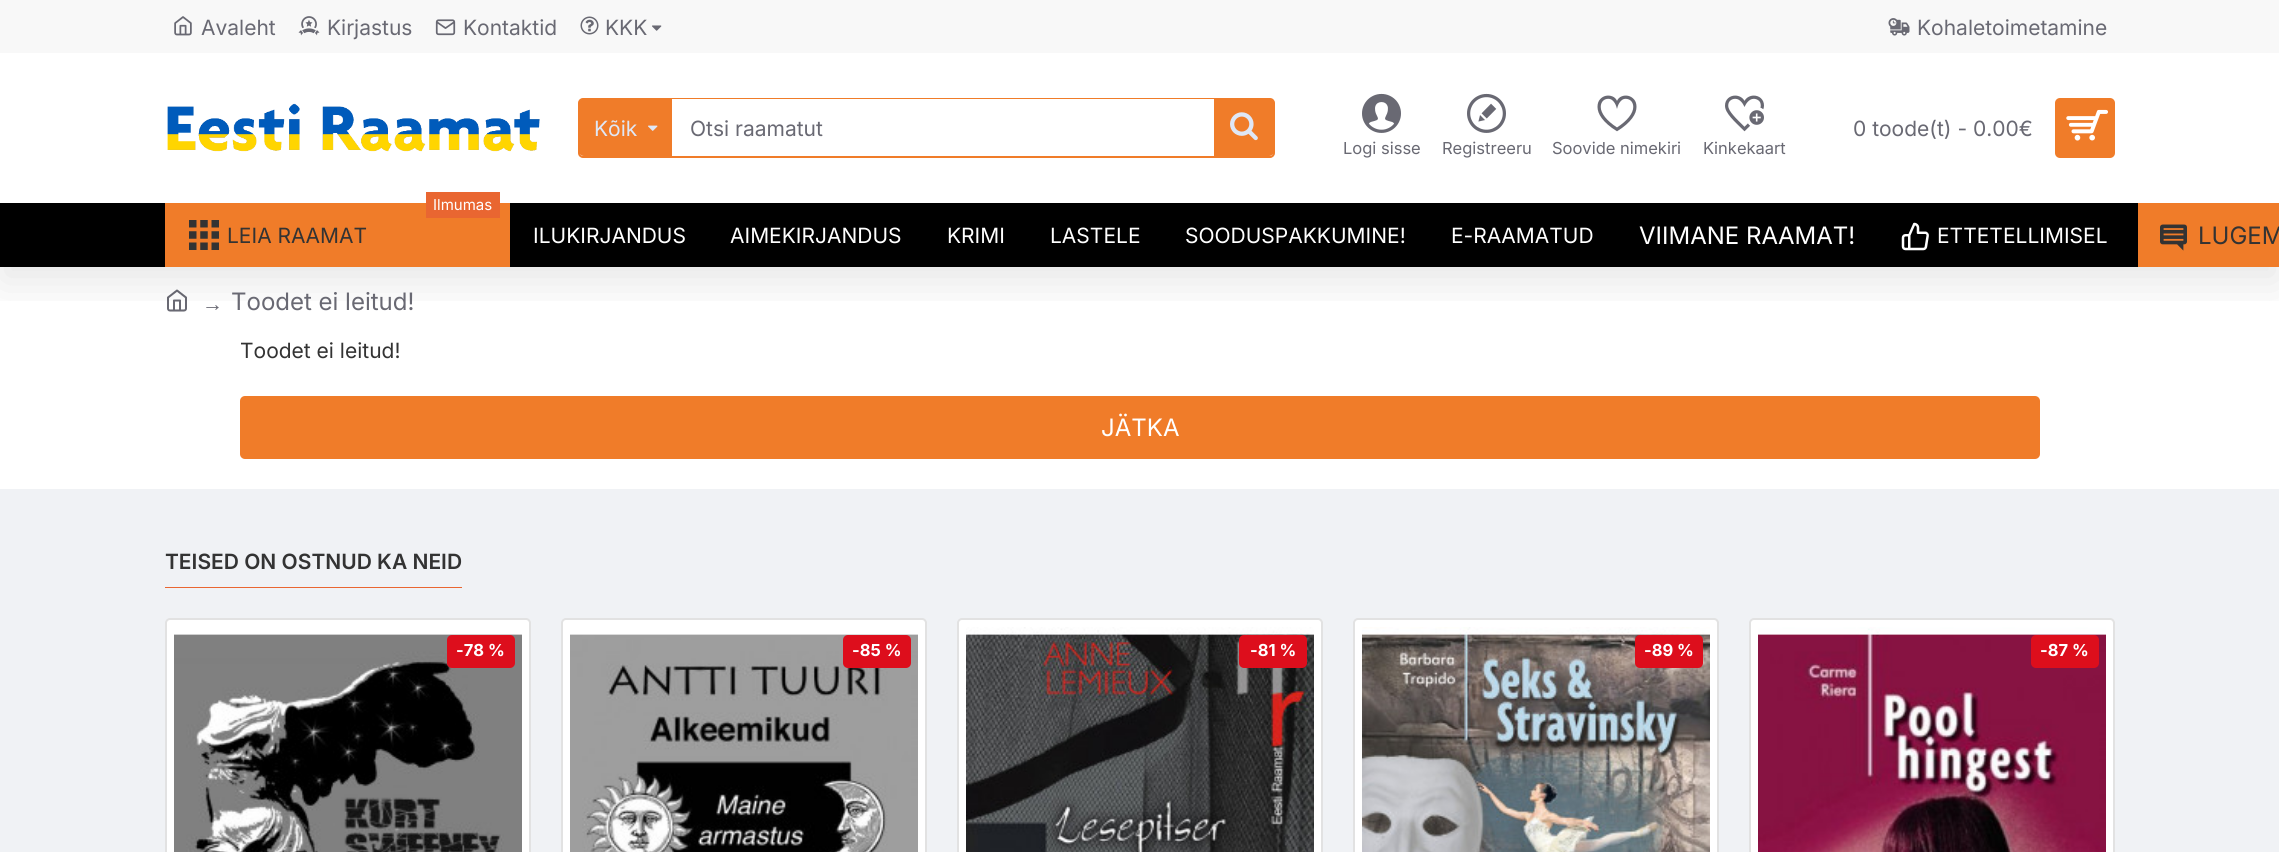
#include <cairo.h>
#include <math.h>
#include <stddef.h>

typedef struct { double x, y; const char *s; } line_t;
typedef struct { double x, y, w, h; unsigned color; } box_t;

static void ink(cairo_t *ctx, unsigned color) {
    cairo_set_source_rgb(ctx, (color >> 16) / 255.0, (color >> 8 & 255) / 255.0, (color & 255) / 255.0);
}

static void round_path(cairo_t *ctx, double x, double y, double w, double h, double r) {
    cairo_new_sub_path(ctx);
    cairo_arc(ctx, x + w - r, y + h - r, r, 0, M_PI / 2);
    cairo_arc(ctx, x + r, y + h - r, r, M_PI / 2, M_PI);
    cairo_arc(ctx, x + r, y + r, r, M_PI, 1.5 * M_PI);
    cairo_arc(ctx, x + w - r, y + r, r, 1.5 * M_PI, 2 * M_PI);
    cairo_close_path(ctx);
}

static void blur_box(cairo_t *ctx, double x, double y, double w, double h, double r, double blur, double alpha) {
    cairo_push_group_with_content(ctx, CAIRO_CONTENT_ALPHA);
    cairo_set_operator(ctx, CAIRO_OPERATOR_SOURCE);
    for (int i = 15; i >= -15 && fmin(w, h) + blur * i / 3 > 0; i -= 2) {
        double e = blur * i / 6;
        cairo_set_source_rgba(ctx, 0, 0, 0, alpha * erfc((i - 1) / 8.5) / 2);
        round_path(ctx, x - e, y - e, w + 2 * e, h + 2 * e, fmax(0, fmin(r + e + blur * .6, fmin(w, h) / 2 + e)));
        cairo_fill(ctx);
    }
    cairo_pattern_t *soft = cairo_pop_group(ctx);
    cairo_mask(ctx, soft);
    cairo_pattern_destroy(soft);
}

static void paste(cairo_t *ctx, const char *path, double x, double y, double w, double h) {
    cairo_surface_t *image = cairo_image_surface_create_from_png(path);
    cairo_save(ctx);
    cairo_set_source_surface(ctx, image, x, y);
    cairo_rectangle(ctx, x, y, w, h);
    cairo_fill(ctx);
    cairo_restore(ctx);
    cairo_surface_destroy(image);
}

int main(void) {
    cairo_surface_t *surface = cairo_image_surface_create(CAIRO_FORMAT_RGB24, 2279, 852);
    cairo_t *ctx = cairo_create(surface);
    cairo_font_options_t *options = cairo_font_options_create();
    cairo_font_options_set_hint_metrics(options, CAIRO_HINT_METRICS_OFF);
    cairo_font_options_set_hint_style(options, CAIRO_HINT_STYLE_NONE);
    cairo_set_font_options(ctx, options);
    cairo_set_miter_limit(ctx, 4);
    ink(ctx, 0xFFFFFF);
    cairo_paint(ctx);
    paste(ctx, "media/18.png", 167, 289, 20, 23);
    cairo_save(ctx);
    cairo_rectangle(ctx, 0, 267, 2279, 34);
    cairo_clip(ctx);
    ink(ctx, 0x000000);
    blur_box(ctx, 0, 15, 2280, 267, 0, 22.5, 0.1);
    cairo_restore(ctx);
    ink(ctx, 0xF8F8F8);
    cairo_rectangle(ctx, 0, 0, 2279, 53);
    cairo_fill(ctx);
    paste(ctx, "media/1.png", 174, 16, 18, 20);
    cairo_select_font_face(ctx, "Inter", CAIRO_FONT_SLANT_NORMAL, CAIRO_FONT_WEIGHT_NORMAL);
    cairo_set_font_size(ctx, 21);
    ink(ctx, 0x696973);
    cairo_move_to(ctx, 201, 35);
    cairo_show_text(ctx, "Avaleht");
    paste(ctx, "media/2.png", 298, 16, 22, 20);
    cairo_move_to(ctx, 327, 35);
    cairo_show_text(ctx, "Kirjastus");
    paste(ctx, "media/3.png", 435, 19, 21, 17);
    cairo_move_to(ctx, 463, 35);
    cairo_show_text(ctx, "Kontaktid");
    paste(ctx, "media/4.png", 580, 16, 19, 19);
    cairo_move_to(ctx, 605, 35);
    cairo_show_text(ctx, "KKK");
    paste(ctx, "media/5.png", 652, 25, 10, 6);
    paste(ctx, "media/6.png", 1888, 18, 22, 18);
    cairo_move_to(ctx, 1917, 35);
    cairo_show_text(ctx, "Kohaletoimetamine");
    paste(ctx, "media/7.png", 167, 103, 373, 49);
    round_path(ctx, 579, 99, 695, 58, 4);
    ink(ctx, 0xF07C29);
    cairo_stroke(ctx);
    cairo_new_path(ctx);
    cairo_move_to(ctx, 584, 99);
    cairo_line_to(ctx, 672, 99);
    cairo_line_to(ctx, 672, 156);
    cairo_line_to(ctx, 584, 156);
    cairo_curve_to(ctx, 581, 156, 579, 154, 579, 151);
    cairo_line_to(ctx, 579, 104);
    cairo_curve_to(ctx, 579, 101, 581, 99, 584, 99);
    cairo_close_path(ctx);
    cairo_fill(ctx);
    ink(ctx, 0xDFE7F6);
    cairo_move_to(ctx, 594, 136);
    cairo_show_text(ctx, "Kõik");
    paste(ctx, "media/8.png", 648, 125, 10, 6);
    ink(ctx, 0xFFFFFF);
    cairo_rectangle(ctx, 672, 99, 542, 1);
    cairo_fill(ctx);
    ink(ctx, 0x696973);
    cairo_move_to(ctx, 690, 136);
    cairo_show_text(ctx, "Otsi raamatut");
    ink(ctx, 0xF07C29);
    cairo_new_path(ctx);
    cairo_move_to(ctx, 1214, 99);
    cairo_line_to(ctx, 1269, 99);
    cairo_curve_to(ctx, 1272, 99, 1274, 101, 1274, 104);
    cairo_line_to(ctx, 1274, 151);
    cairo_curve_to(ctx, 1274, 154, 1272, 156, 1269, 156);
    cairo_line_to(ctx, 1214, 156);
    cairo_close_path(ctx);
    cairo_fill(ctx);
    paste(ctx, "media/9.png", 1230, 112, 28, 29);
    ink(ctx, 0x696973);
    cairo_move_to(ctx, 1853, 136);
    cairo_show_text(ctx, "0 toode(t) - 0.00€");
    ink(ctx, 0xF07C29);
    round_path(ctx, 2055, 98, 60, 60, 5);
    cairo_fill(ctx);
    paste(ctx, "media/10.png", 2066, 109, 42, 32);
    paste(ctx, "media/11.png", 1362, 93, 39, 40);
    cairo_set_font_size(ctx, 16.5);
    ink(ctx, 0x696973);
    cairo_move_to(ctx, 1343, 154);
    cairo_show_text(ctx, "Logi sisse");
    paste(ctx, "media/12.png", 1467, 93, 39, 40);
    cairo_move_to(ctx, 1442, 154);
    cairo_show_text(ctx, "Registreeru");
    paste(ctx, "media/13.png", 1597, 95, 40, 37);
    cairo_move_to(ctx, 1552, 154);
    cairo_show_text(ctx, "Soovide nimekiri");
    paste(ctx, "media/14.png", 1725, 95, 39, 37);
    cairo_move_to(ctx, 1703, 154);
    cairo_show_text(ctx, "Kinkekaart");
    {
        static const box_t items[] = {
            {0, 203, 2138, 64, 0x000000},
            {165, 203, 345, 64, 0xF07C29},
            {426, 192, 74, 26, 0xE96631},
        };
        for (size_t i = 0; i < sizeof items / sizeof *items; i++) {
            ink(ctx, items[i].color);
            cairo_rectangle(ctx, items[i].x, items[i].y, items[i].w, items[i].h);
            cairo_fill(ctx);
        }
    }
    cairo_set_font_size(ctx, 15);
    ink(ctx, 0xFFFFFF);
    cairo_move_to(ctx, 433, 210);
    cairo_show_text(ctx, "Ilmumas");
    paste(ctx, "media/15.png", 189, 220, 30, 30);
    cairo_set_font_size(ctx, 21);
    ink(ctx, 0x333333);
    cairo_move_to(ctx, 227, 243);
    cairo_show_text(ctx, "LEIA RAAMAT");
    ink(ctx, 0xFFFFFF);
    {
        static const line_t items[] = {
            {533, 243, "ILUKIRJANDUS"},
            {730, 243, "AIMEKIRJANDUS"},
            {947, 243, "KRIMI"},
            {1050, 243, "LASTELE"},
            {1185, 243, "SOODUSPAKKUMINE!"},
            {1451, 243, "E-RAAMATUD"},
        };
        for (size_t i = 0; i < sizeof items / sizeof *items; i++) {
            cairo_move_to(ctx, items[i].x, items[i].y);
            cairo_show_text(ctx, items[i].s);
        }
    }
    cairo_set_font_size(ctx, 24);
    cairo_move_to(ctx, 1639, 244);
    cairo_show_text(ctx, "VIIMANE RAAMAT!");
    paste(ctx, "media/16.png", 1901, 222, 28, 29);
    cairo_set_font_size(ctx, 21);
    cairo_move_to(ctx, 1937, 243);
    cairo_show_text(ctx, "ETTETELLIMISEL");
    ink(ctx, 0xF07C29);
    cairo_rectangle(ctx, 2138, 203, 141, 64);
    cairo_fill(ctx);
    paste(ctx, "media/17.png", 2160, 224, 27, 27);
    cairo_set_font_size(ctx, 24);
    ink(ctx, 0x333333);
    cairo_move_to(ctx, 2198, 244);
    cairo_show_text(ctx, "LUGEM");
    cairo_select_font_face(ctx, "Liberation Serif", CAIRO_FONT_SLANT_NORMAL, CAIRO_FONT_WEIGHT_NORMAL);
    cairo_set_font_size(ctx, 21);
    ink(ctx, 0x696973);
    cairo_move_to(ctx, 202, 311);
    cairo_show_text(ctx, "→");
    cairo_select_font_face(ctx, "Inter", CAIRO_FONT_SLANT_NORMAL, CAIRO_FONT_WEIGHT_NORMAL);
    cairo_set_font_size(ctx, 24);
    cairo_move_to(ctx, 231, 310);
    cairo_show_text(ctx, "Toodet ei leitud!");
    cairo_set_font_size(ctx, 21);
    ink(ctx, 0x333333);
    cairo_move_to(ctx, 240, 358);
    cairo_show_text(ctx, "Toodet ei leitud!");
    ink(ctx, 0xF07C29);
    round_path(ctx, 240, 396, 1800, 63, 5);
    cairo_fill(ctx);
    cairo_set_font_size(ctx, 24);
    ink(ctx, 0xFFFFFF);
    cairo_move_to(ctx, 1101, 436);
    cairo_show_text(ctx, "JÄTKA");
    ink(ctx, 0xF0F2F5);
    cairo_rectangle(ctx, 0, 489, 2279, 363);
    cairo_fill(ctx);
    ink(ctx, 0xE96631);
    cairo_rectangle(ctx, 165, 587, 297, 1);
    cairo_fill(ctx);
    cairo_select_font_face(ctx, "Inter SemiBold", CAIRO_FONT_SLANT_NORMAL, CAIRO_FONT_WEIGHT_NORMAL);
    cairo_set_font_size(ctx, 21);
    ink(ctx, 0x333333);
    cairo_move_to(ctx, 165, 569);
    cairo_show_text(ctx, "TEISED ON OSTNUD KA NEID");
    ink(ctx, 0xFFFFFF);
    round_path(ctx, 166, 619, 364, 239, 4);
    cairo_fill_preserve(ctx);
    ink(ctx, 0xE2E2E2);
    cairo_stroke(ctx);
    paste(ctx, "media/19.png", 174, 634, 348, 218);
    ink(ctx, 0xDD0E1C);
    round_path(ctx, 447, 635, 68, 33, 5);
    cairo_fill(ctx);
    cairo_select_font_face(ctx, "Inter", CAIRO_FONT_SLANT_NORMAL, CAIRO_FONT_WEIGHT_BOLD);
    cairo_set_font_size(ctx, 16.5);
    ink(ctx, 0xFFFFFF);
    cairo_move_to(ctx, 456, 656);
    cairo_show_text(ctx, "-78 %");
    round_path(ctx, 562, 619, 364, 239, 4);
    cairo_fill_preserve(ctx);
    ink(ctx, 0xE2E2E2);
    cairo_stroke(ctx);
    paste(ctx, "media/20.png", 570, 634, 348, 218);
    ink(ctx, 0xDD0E1C);
    round_path(ctx, 843, 635, 68, 33, 5);
    cairo_fill(ctx);
    ink(ctx, 0xFFFFFF);
    cairo_move_to(ctx, 852, 656);
    cairo_show_text(ctx, "-85 %");
    round_path(ctx, 958, 619, 364, 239, 4);
    cairo_fill_preserve(ctx);
    ink(ctx, 0xE2E2E2);
    cairo_stroke(ctx);
    paste(ctx, "media/21.png", 966, 627, 348, 225);
    ink(ctx, 0xDD0E1C);
    round_path(ctx, 1239, 635, 68, 33, 5);
    cairo_fill(ctx);
    ink(ctx, 0xFFFFFF);
    cairo_move_to(ctx, 1250, 656);
    cairo_show_text(ctx, "-81 %");
    round_path(ctx, 1354, 619, 364, 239, 4);
    cairo_fill_preserve(ctx);
    ink(ctx, 0xE2E2E2);
    cairo_stroke(ctx);
    paste(ctx, "media/22.png", 1362, 627, 348, 225);
    ink(ctx, 0xDD0E1C);
    round_path(ctx, 1635, 635, 68, 33, 5);
    cairo_fill(ctx);
    ink(ctx, 0xFFFFFF);
    cairo_move_to(ctx, 1644, 656);
    cairo_show_text(ctx, "-89 %");
    round_path(ctx, 1750, 619, 364, 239, 4);
    cairo_fill_preserve(ctx);
    ink(ctx, 0xE2E2E2);
    cairo_stroke(ctx);
    paste(ctx, "media/23.png", 1758, 627, 348, 225);
    ink(ctx, 0xDD0E1C);
    round_path(ctx, 2031, 635, 68, 33, 5);
    cairo_fill(ctx);
    ink(ctx, 0xFFFFFF);
    cairo_move_to(ctx, 2040, 656);
    cairo_show_text(ctx, "-87 %");
    cairo_surface_write_to_png(surface, "image.png");
    cairo_font_options_destroy(options);
    cairo_destroy(ctx);
    cairo_surface_destroy(surface);
    return 0;
}
